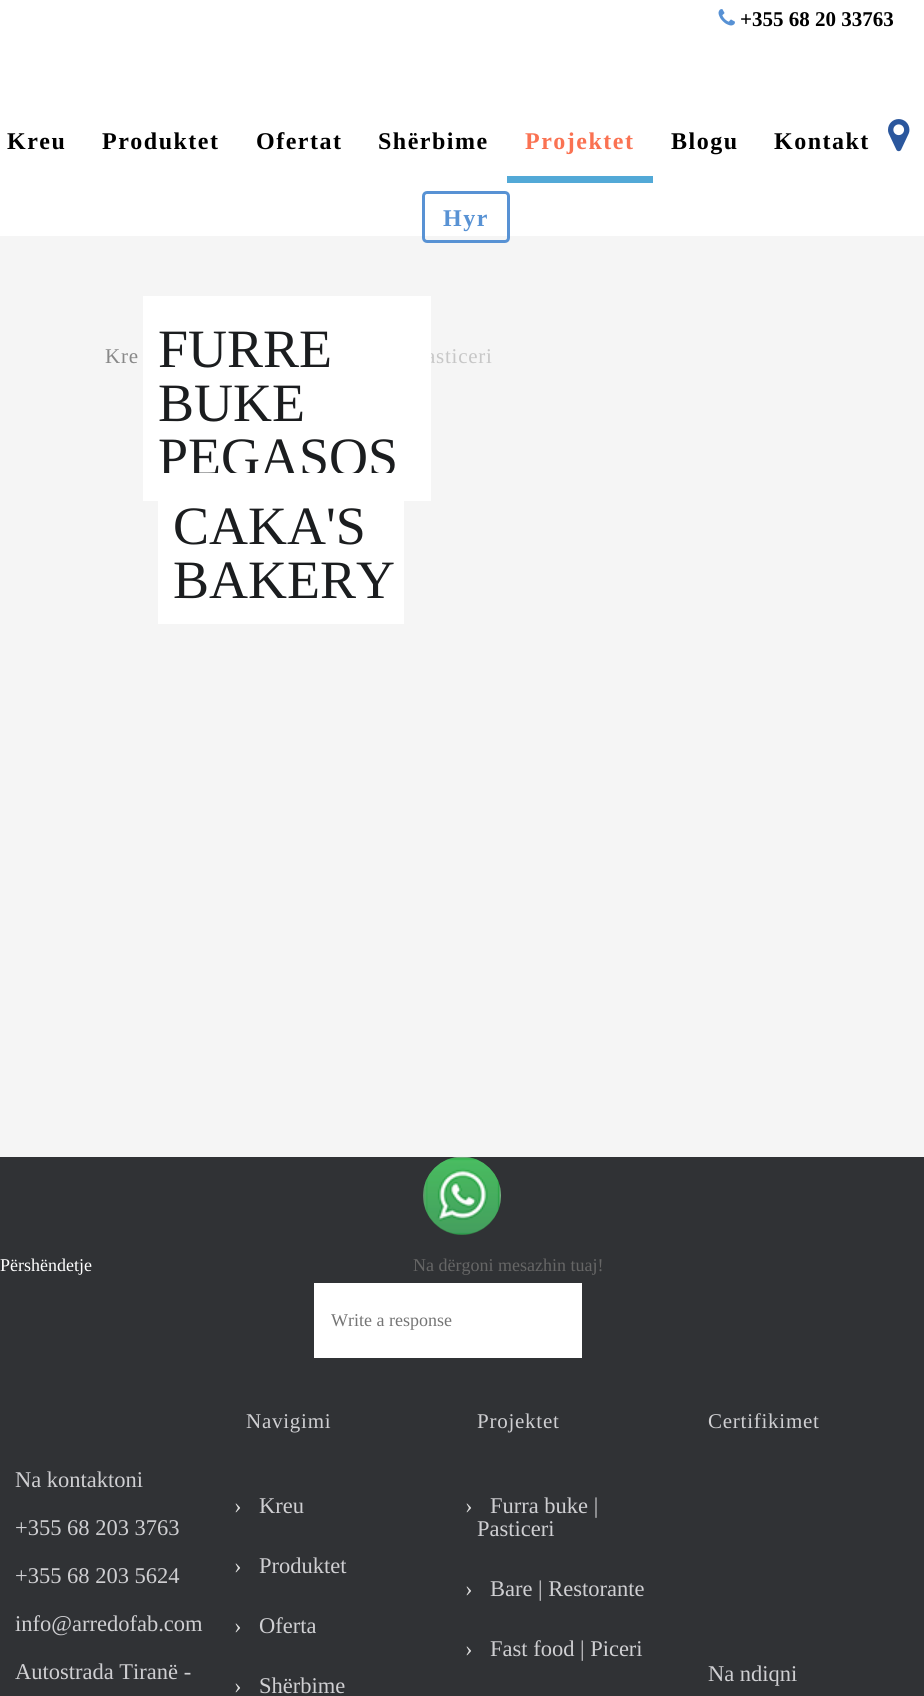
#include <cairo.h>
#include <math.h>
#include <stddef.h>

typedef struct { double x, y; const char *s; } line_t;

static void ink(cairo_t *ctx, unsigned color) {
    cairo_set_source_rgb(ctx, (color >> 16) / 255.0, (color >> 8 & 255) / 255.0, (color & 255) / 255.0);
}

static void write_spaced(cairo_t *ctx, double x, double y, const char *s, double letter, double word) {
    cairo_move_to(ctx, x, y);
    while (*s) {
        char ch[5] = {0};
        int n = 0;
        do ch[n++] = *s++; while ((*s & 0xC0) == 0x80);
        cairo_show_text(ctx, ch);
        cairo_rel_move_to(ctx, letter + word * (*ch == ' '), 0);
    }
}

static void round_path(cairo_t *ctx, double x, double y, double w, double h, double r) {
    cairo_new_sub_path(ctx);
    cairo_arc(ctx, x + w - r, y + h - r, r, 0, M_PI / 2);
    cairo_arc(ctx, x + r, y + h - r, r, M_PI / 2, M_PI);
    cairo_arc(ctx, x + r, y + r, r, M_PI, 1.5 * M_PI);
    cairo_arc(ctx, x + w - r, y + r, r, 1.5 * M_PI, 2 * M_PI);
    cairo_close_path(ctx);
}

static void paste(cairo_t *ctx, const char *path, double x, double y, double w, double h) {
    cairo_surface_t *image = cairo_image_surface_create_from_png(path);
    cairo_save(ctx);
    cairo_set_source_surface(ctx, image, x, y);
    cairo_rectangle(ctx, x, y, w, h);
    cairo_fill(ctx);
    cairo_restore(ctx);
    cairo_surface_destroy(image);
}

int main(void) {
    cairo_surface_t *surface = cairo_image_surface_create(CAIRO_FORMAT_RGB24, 924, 1696);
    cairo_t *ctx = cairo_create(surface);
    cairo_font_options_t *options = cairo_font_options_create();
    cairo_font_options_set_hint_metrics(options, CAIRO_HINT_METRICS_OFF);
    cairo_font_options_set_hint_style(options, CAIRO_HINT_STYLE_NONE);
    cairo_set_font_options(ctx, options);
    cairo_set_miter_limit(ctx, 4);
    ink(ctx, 0xF5F5F5);
    cairo_paint(ctx);
    ink(ctx, 0xFFFFFF);
    cairo_rectangle(ctx, 0, 0, 924, 236);
    cairo_fill(ctx);
    paste(ctx, "media/1.png", 718, 9, 17, 17);
    cairo_select_font_face(ctx, "Liberation Serif", CAIRO_FONT_SLANT_NORMAL, CAIRO_FONT_WEIGHT_BOLD);
    cairo_set_font_size(ctx, 21);
    ink(ctx, 0x000000);
    cairo_move_to(ctx, 740, 26);
    cairo_show_text(ctx, "+355 68 20 33763");
    cairo_set_font_size(ctx, 24);
    {
        static const line_t items[] = {
            {7, 149, "Kreu"},
            {102, 149, "Produktet"},
            {256, 149, "Ofertat"},
            {378, 149, "Shërbime"},
        };
        for (size_t i = 0; i < sizeof items / sizeof *items; i++) {
            write_spaced(ctx, items[i].x, items[i].y, items[i].s, 1.5, 0);
        }
    }
    ink(ctx, 0x52A9D7);
    cairo_rectangle(ctx, 507, 176, 146, 7);
    cairo_fill(ctx);
    ink(ctx, 0xFA7252);
    write_spaced(ctx, 525, 149, "Projektet", 1.5, 0);
    ink(ctx, 0x000000);
    write_spaced(ctx, 671, 149, "Blogu", 1.5, 0);
    write_spaced(ctx, 774, 149, "Kontakt", 1.5, 0);
    paste(ctx, "media/2.png", 888, 119, 22, 33);
    round_path(ctx, 423.5, 192.5, 85, 49, 3.5);
    ink(ctx, 0x5892D4);
    cairo_set_line_width(ctx, 3);
    cairo_stroke(ctx);
    write_spaced(ctx, 443, 226, "Hyr", 1.5, 0);
    cairo_select_font_face(ctx, "Liberation Serif", CAIRO_FONT_SLANT_NORMAL, CAIRO_FONT_WEIGHT_NORMAL);
    cairo_set_font_size(ctx, 21);
    ink(ctx, 0xC7C7C7);
    write_spaced(ctx, 426, 363, "asticeri", 0.75, 0);
    ink(ctx, 0xFFFFFF);
    cairo_rectangle(ctx, 143, 296, 288, 205);
    cairo_fill(ctx);
    cairo_set_font_size(ctx, 54);
    ink(ctx, 0x1B1D1F);
    {
        static const line_t items[] = {
            {158, 367, "FURRE"},
            {158, 421, "BUKE"},
            {158, 475, "PEGASOS"},
        };
        for (size_t i = 0; i < sizeof items / sizeof *items; i++) {
            cairo_move_to(ctx, items[i].x, items[i].y);
            cairo_show_text(ctx, items[i].s);
        }
    }
    ink(ctx, 0xFFFFFF);
    cairo_rectangle(ctx, 158, 473, 246, 151);
    cairo_fill(ctx);
    ink(ctx, 0x1B1D1F);
    cairo_move_to(ctx, 173, 544);
    cairo_show_text(ctx, "CAKA'S");
    cairo_move_to(ctx, 173, 598);
    cairo_show_text(ctx, "BAKERY");
    cairo_set_font_size(ctx, 21);
    ink(ctx, 0x888888);
    write_spaced(ctx, 105, 363, "Kre", 0.75, 0);
    ink(ctx, 0x303235);
    cairo_rectangle(ctx, 0, 1157, 924, 539);
    cairo_fill(ctx);
    ink(ctx, 0x367744);
    cairo_arc(ctx, 462, 1196, 39, 0, 2 * M_PI);
    cairo_fill(ctx);
    paste(ctx, "media/3.png", 423, 1156, 78, 79);
    cairo_set_font_size(ctx, 18);
    ink(ctx, 0xFFFFFF);
    cairo_move_to(ctx, 0, 1271);
    cairo_show_text(ctx, "Përshëndetje");
    ink(ctx, 0x666666);
    cairo_move_to(ctx, 413, 1271);
    cairo_show_text(ctx, "Na dërgoni mesazhin tuaj!");
    ink(ctx, 0xFFFFFF);
    cairo_rectangle(ctx, 314, 1283, 268, 75);
    cairo_fill(ctx);
    ink(ctx, 0x757575);
    cairo_move_to(ctx, 331, 1326);
    cairo_show_text(ctx, "Write a response");
    cairo_set_font_size(ctx, 22.5);
    ink(ctx, 0xCFCFD2);
    {
        static const line_t items[] = {
            {15, 1487, "Na kontaktoni"},
            {15, 1535, "+355 68 203 3763"},
            {15, 1583, "+355 68 203 5624"},
            {15, 1631, "info@arredofab.com"},
            {15, 1679, "Autostrada Tiranë -"},
        };
        for (size_t i = 0; i < sizeof items / sizeof *items; i++) {
            cairo_move_to(ctx, items[i].x, items[i].y);
            cairo_show_text(ctx, items[i].s);
        }
    }
    cairo_set_font_size(ctx, 21);
    write_spaced(ctx, 246, 1428, "Navigimi", 0.75, 0);
    cairo_set_font_size(ctx, 22.5);
    ink(ctx, 0xDADADA);
    cairo_move_to(ctx, 234, 1513);
    cairo_show_text(ctx, "›");
    ink(ctx, 0xCFCFD2);
    cairo_move_to(ctx, 259, 1513);
    cairo_show_text(ctx, "Kreu");
    ink(ctx, 0xDADADA);
    cairo_move_to(ctx, 234, 1573);
    cairo_show_text(ctx, "›");
    ink(ctx, 0xCFCFD2);
    cairo_move_to(ctx, 259, 1573);
    cairo_show_text(ctx, "Produktet");
    ink(ctx, 0xDADADA);
    cairo_move_to(ctx, 234, 1633);
    cairo_show_text(ctx, "›");
    ink(ctx, 0xCFCFD2);
    cairo_move_to(ctx, 259, 1633);
    cairo_show_text(ctx, "Oferta");
    ink(ctx, 0xDADADA);
    cairo_move_to(ctx, 234, 1693);
    cairo_show_text(ctx, "›");
    ink(ctx, 0xCFCFD2);
    cairo_move_to(ctx, 259, 1693);
    cairo_show_text(ctx, "Shërbime");
    cairo_set_font_size(ctx, 21);
    write_spaced(ctx, 477, 1428, "Projektet", 0.75, 0);
    cairo_set_font_size(ctx, 22.5);
    ink(ctx, 0xDADADA);
    cairo_move_to(ctx, 465, 1513);
    cairo_show_text(ctx, "›");
    ink(ctx, 0xCFCFD2);
    cairo_move_to(ctx, 490, 1513);
    cairo_show_text(ctx, "Furra buke |");
    cairo_move_to(ctx, 477, 1536);
    cairo_show_text(ctx, "Pasticeri");
    ink(ctx, 0xDADADA);
    cairo_move_to(ctx, 465, 1596);
    cairo_show_text(ctx, "›");
    ink(ctx, 0xCFCFD2);
    cairo_move_to(ctx, 490, 1596);
    cairo_show_text(ctx, "Bare | Restorante");
    ink(ctx, 0xDADADA);
    cairo_move_to(ctx, 465, 1656);
    cairo_show_text(ctx, "›");
    ink(ctx, 0xCFCFD2);
    cairo_move_to(ctx, 490, 1656);
    cairo_show_text(ctx, "Fast food | Piceri");
    cairo_set_font_size(ctx, 21);
    write_spaced(ctx, 708, 1428, "Certifikimet", 0.75, 0);
    cairo_set_font_size(ctx, 22.5);
    cairo_move_to(ctx, 708, 1681);
    cairo_show_text(ctx, "Na ndiqni");
    cairo_surface_write_to_png(surface, "image.png");
    cairo_font_options_destroy(options);
    cairo_destroy(ctx);
    cairo_surface_destroy(surface);
    return 0;
}
